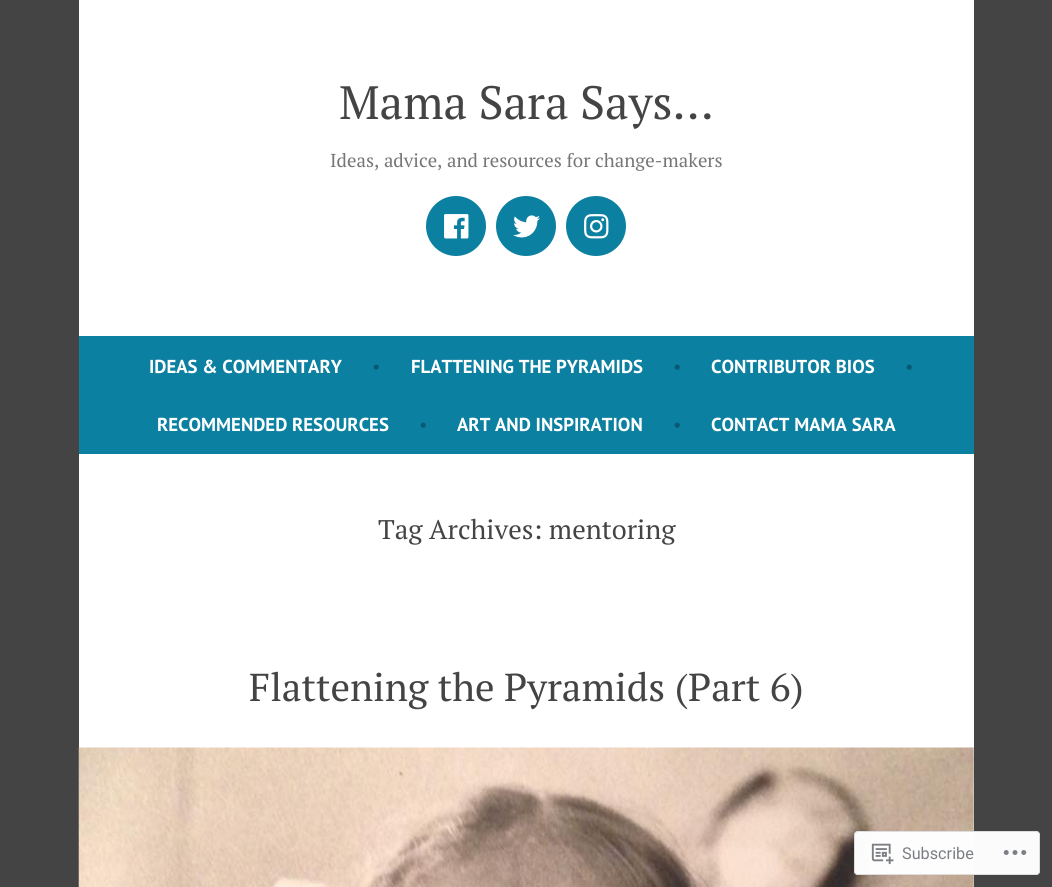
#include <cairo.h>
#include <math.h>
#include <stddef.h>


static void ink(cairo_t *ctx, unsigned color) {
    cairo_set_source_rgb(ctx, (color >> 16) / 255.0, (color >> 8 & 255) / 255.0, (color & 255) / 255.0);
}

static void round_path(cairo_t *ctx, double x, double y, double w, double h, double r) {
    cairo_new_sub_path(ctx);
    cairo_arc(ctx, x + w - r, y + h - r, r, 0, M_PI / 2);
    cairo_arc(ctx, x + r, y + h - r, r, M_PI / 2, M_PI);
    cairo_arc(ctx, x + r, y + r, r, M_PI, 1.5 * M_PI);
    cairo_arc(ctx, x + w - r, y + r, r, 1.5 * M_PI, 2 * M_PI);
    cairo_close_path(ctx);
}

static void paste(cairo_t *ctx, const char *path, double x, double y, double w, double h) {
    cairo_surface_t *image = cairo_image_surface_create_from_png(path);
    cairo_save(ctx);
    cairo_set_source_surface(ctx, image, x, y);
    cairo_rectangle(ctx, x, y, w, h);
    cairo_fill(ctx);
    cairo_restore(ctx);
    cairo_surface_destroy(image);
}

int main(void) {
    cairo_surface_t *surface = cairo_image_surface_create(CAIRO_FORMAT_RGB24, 1052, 887);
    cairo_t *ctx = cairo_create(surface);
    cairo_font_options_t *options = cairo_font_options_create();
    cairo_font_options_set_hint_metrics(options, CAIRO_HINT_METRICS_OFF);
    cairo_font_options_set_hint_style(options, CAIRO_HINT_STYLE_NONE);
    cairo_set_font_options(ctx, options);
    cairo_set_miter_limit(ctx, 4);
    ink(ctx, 0x444444);
    cairo_paint(ctx);
    ink(ctx, 0xFFFFFF);
    cairo_rectangle(ctx, 79, 0, 895, 887);
    cairo_fill(ctx);
    cairo_select_font_face(ctx, "PT Serif", CAIRO_FONT_SLANT_NORMAL, CAIRO_FONT_WEIGHT_NORMAL);
    cairo_set_font_size(ctx, 46.75);
    ink(ctx, 0x444444);
    cairo_move_to(ctx, 339, 119);
    cairo_show_text(ctx, "Mama Sara Says…");
    cairo_set_font_size(ctx, 18.75);
    ink(ctx, 0x767676);
    cairo_move_to(ctx, 330, 167);
    cairo_show_text(ctx, "Ideas, advice, and resources for change-makers");
    ink(ctx, 0x0C80A1);
    cairo_new_path(ctx);
    cairo_arc(ctx, 456, 226, 30, 0, 2 * M_PI);
    cairo_fill(ctx);
    paste(ctx, "media/1.png", 444, 214, 25, 25);
    cairo_arc(ctx, 526, 226, 30, 0, 2 * M_PI);
    cairo_fill(ctx);
    paste(ctx, "media/2.png", 513, 215, 27, 23);
    cairo_arc(ctx, 596, 226, 30, 0, 2 * M_PI);
    cairo_fill(ctx);
    paste(ctx, "media/3.png", 584, 214, 25, 25);
    cairo_rectangle(ctx, 79, 336, 895, 118);
    cairo_fill(ctx);
    cairo_select_font_face(ctx, "PT Sans", CAIRO_FONT_SLANT_NORMAL, CAIRO_FONT_WEIGHT_BOLD);
    ink(ctx, 0xFFFFFF);
    cairo_move_to(ctx, 149, 373);
    cairo_show_text(ctx, "IDEAS & COMMENTARY");
    cairo_select_font_face(ctx, "PT Sans", CAIRO_FONT_SLANT_NORMAL, CAIRO_FONT_WEIGHT_NORMAL);
    ink(ctx, 0x085A72);
    cairo_move_to(ctx, 372, 373);
    cairo_show_text(ctx, "•");
    cairo_select_font_face(ctx, "PT Sans", CAIRO_FONT_SLANT_NORMAL, CAIRO_FONT_WEIGHT_BOLD);
    ink(ctx, 0xFFFFFF);
    cairo_move_to(ctx, 411, 373);
    cairo_show_text(ctx, "FLATTENING THE PYRAMIDS");
    cairo_select_font_face(ctx, "PT Sans", CAIRO_FONT_SLANT_NORMAL, CAIRO_FONT_WEIGHT_NORMAL);
    ink(ctx, 0x085A72);
    cairo_move_to(ctx, 673, 373);
    cairo_show_text(ctx, "•");
    cairo_select_font_face(ctx, "PT Sans", CAIRO_FONT_SLANT_NORMAL, CAIRO_FONT_WEIGHT_BOLD);
    ink(ctx, 0xFFFFFF);
    cairo_move_to(ctx, 711, 373);
    cairo_show_text(ctx, "CONTRIBUTOR BIOS");
    cairo_select_font_face(ctx, "PT Sans", CAIRO_FONT_SLANT_NORMAL, CAIRO_FONT_WEIGHT_NORMAL);
    ink(ctx, 0x085A72);
    cairo_move_to(ctx, 905, 373);
    cairo_show_text(ctx, "•");
    cairo_select_font_face(ctx, "PT Sans", CAIRO_FONT_SLANT_NORMAL, CAIRO_FONT_WEIGHT_BOLD);
    ink(ctx, 0xFFFFFF);
    cairo_move_to(ctx, 157, 431);
    cairo_show_text(ctx, "RECOMMENDED RESOURCES");
    cairo_select_font_face(ctx, "PT Sans", CAIRO_FONT_SLANT_NORMAL, CAIRO_FONT_WEIGHT_NORMAL);
    ink(ctx, 0x085A72);
    cairo_move_to(ctx, 419, 431);
    cairo_show_text(ctx, "•");
    cairo_select_font_face(ctx, "PT Sans", CAIRO_FONT_SLANT_NORMAL, CAIRO_FONT_WEIGHT_BOLD);
    ink(ctx, 0xFFFFFF);
    cairo_move_to(ctx, 457, 431);
    cairo_show_text(ctx, "ART AND INSPIRATION");
    cairo_select_font_face(ctx, "PT Sans", CAIRO_FONT_SLANT_NORMAL, CAIRO_FONT_WEIGHT_NORMAL);
    ink(ctx, 0x085A72);
    cairo_move_to(ctx, 673, 431);
    cairo_show_text(ctx, "•");
    cairo_select_font_face(ctx, "PT Sans", CAIRO_FONT_SLANT_NORMAL, CAIRO_FONT_WEIGHT_BOLD);
    ink(ctx, 0xFFFFFF);
    cairo_move_to(ctx, 711, 431);
    cairo_show_text(ctx, "CONTACT MAMA SARA");
    cairo_select_font_face(ctx, "PT Serif", CAIRO_FONT_SLANT_NORMAL, CAIRO_FONT_WEIGHT_NORMAL);
    cairo_set_font_size(ctx, 27);
    ink(ctx, 0x444444);
    cairo_move_to(ctx, 378, 539);
    cairo_show_text(ctx, "Tag Archives: mentoring");
    cairo_set_font_size(ctx, 38.9);
    cairo_move_to(ctx, 249, 701);
    cairo_show_text(ctx, "Flattening the Pyramids (Part 6)");
    paste(ctx, "media/4.png", 78, 747, 896, 140);
    cairo_set_source_rgba(ctx, 1, 1, 1, 0.98);
    round_path(ctx, 854, 831, 186, 44, 4);
    cairo_fill(ctx);
    round_path(ctx, 854.5, 831.5, 185, 43, 3.5);
    cairo_set_source_rgba(ctx, 0.863, 0.863, 0.871, 0.98);
    cairo_set_line_width(ctx, 1);
    cairo_stroke(ctx);
    paste(ctx, "media/5.png", 871, 843, 23, 22);
    cairo_select_font_face(ctx, "Roboto", CAIRO_FONT_SLANT_NORMAL, CAIRO_FONT_WEIGHT_NORMAL);
    cairo_set_font_size(ctx, 16.25);
    ink(ctx, 0x7B7F84);
    cairo_move_to(ctx, 902, 859);
    cairo_show_text(ctx, "Subscribe");
    paste(ctx, "media/6.png", 1003, 850, 24, 5);
    cairo_surface_write_to_png(surface, "image.png");
    cairo_font_options_destroy(options);
    cairo_destroy(ctx);
    cairo_surface_destroy(surface);
    return 0;
}
